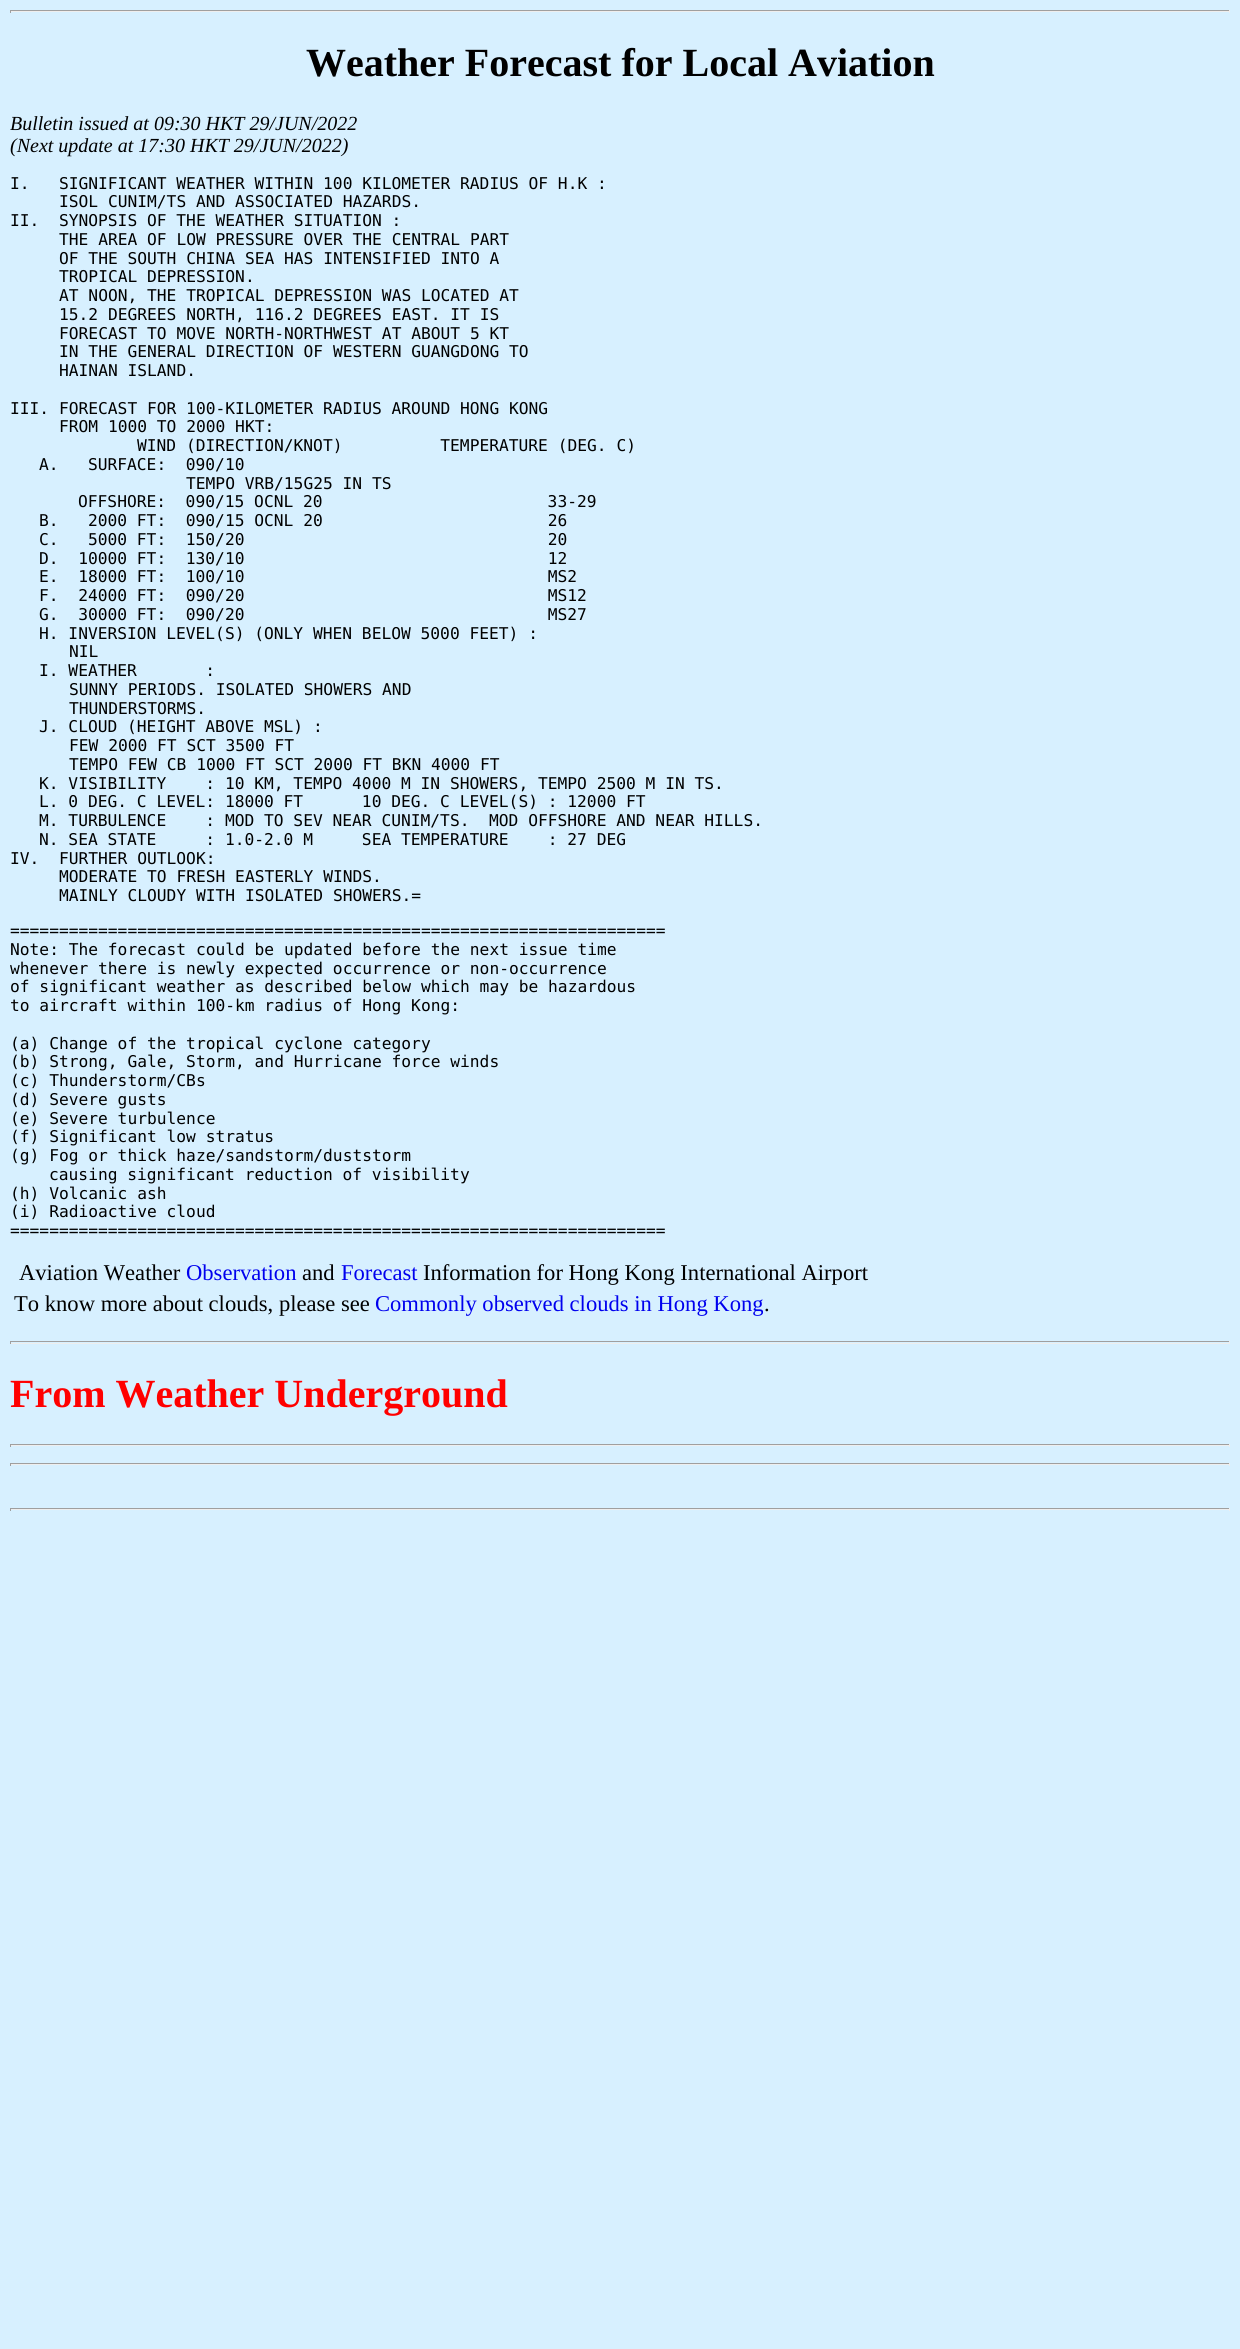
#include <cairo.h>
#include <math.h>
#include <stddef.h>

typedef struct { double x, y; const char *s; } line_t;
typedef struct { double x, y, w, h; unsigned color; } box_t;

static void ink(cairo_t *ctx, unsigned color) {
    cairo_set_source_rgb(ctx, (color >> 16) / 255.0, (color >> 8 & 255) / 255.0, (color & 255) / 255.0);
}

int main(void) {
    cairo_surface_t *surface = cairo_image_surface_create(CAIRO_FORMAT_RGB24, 1240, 2349);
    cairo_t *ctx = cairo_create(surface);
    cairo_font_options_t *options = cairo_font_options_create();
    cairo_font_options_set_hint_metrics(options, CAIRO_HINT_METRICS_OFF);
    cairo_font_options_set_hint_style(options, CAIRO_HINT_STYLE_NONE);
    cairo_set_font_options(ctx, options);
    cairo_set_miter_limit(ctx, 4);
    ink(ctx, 0xD7F0FF);
    cairo_paint(ctx);
    {
        static const box_t items[] = {
            {10, 10, 1220, 1, 0x9F9F9F},
            {1229, 10, 1, 3, 0xEEEEEE},
            {10, 11, 1220, 1, 0xEEEEEE},
            {10, 10, 1, 3, 0x9F9F9F},
        };
        for (size_t i = 0; i < sizeof items / sizeof *items; i++) {
            ink(ctx, items[i].color);
            cairo_rectangle(ctx, items[i].x, items[i].y, items[i].w, items[i].h);
            cairo_fill(ctx);
        }
    }
    cairo_select_font_face(ctx, "Liberation Serif", CAIRO_FONT_SLANT_NORMAL, CAIRO_FONT_WEIGHT_BOLD);
    cairo_set_font_size(ctx, 40);
    ink(ctx, 0x000000);
    cairo_move_to(ctx, 306, 76);
    cairo_show_text(ctx, "Weather Forecast for Local Aviation");
    cairo_select_font_face(ctx, "Liberation Serif", CAIRO_FONT_SLANT_ITALIC, CAIRO_FONT_WEIGHT_NORMAL);
    cairo_set_font_size(ctx, 20);
    cairo_move_to(ctx, 10, 130);
    cairo_show_text(ctx, "Bulletin issued at 09:30 HKT 29/JUN/2022");
    cairo_move_to(ctx, 10, 152);
    cairo_show_text(ctx, "(Next update at 17:30 HKT 29/JUN/2022)");
    cairo_select_font_face(ctx, "DejaVu Sans Mono", CAIRO_FONT_SLANT_NORMAL, CAIRO_FONT_WEIGHT_NORMAL);
    cairo_set_font_size(ctx, 16.25);
    {
        static const line_t items[] = {
            {10, 189, "I.   SIGNIFICANT WEATHER WITHIN 100 KILOMETER RADIUS OF H.K :"},
            {59, 207, "ISOL CUNIM/TS AND ASSOCIATED HAZARDS."},
            {10, 226, "II.  SYNOPSIS OF THE WEATHER SITUATION :"},
            {59, 245, "THE AREA OF LOW PRESSURE OVER THE CENTRAL PART"},
            {59, 264, "OF THE SOUTH CHINA SEA HAS INTENSIFIED INTO A"},
            {59, 282, "TROPICAL DEPRESSION."},
            {59, 301, "AT NOON, THE TROPICAL DEPRESSION WAS LOCATED AT"},
            {59, 320, "15.2 DEGREES NORTH, 116.2 DEGREES EAST. IT IS"},
            {59, 339, "FORECAST TO MOVE NORTH-NORTHWEST AT ABOUT 5 KT"},
            {59, 357, "IN THE GENERAL DIRECTION OF WESTERN GUANGDONG TO"},
            {59, 376, "HAINAN ISLAND."},
            {10, 414, "III. FORECAST FOR 100-KILOMETER RADIUS AROUND HONG KONG"},
            {59, 432, "FROM 1000 TO 2000 HKT:"},
            {137, 451, "WIND (DIRECTION/KNOT)          TEMPERATURE (DEG. C)"},
            {39, 470, "A.   SURFACE:  090/10"},
            {186, 489, "TEMPO VRB/15G25 IN TS"},
            {78, 507, "OFFSHORE:  090/15 OCNL 20                       33-29"},
            {39, 526, "B.   2000 FT:  090/15 OCNL 20                       26"},
            {39, 545, "C.   5000 FT:  150/20                               20"},
            {39, 564, "D.  10000 FT:  130/10                               12"},
            {39, 582, "E.  18000 FT:  100/10                               MS2"},
            {39, 601, "F.  24000 FT:  090/20                               MS12"},
            {39, 620, "G.  30000 FT:  090/20                               MS27"},
            {39, 639, "H. INVERSION LEVEL(S) (ONLY WHEN BELOW 5000 FEET) :"},
            {69, 657, "NIL"},
            {39, 676, "I. WEATHER       :"},
            {69, 695, "SUNNY PERIODS. ISOLATED SHOWERS AND"},
            {69, 714, "THUNDERSTORMS."},
            {39, 732, "J. CLOUD (HEIGHT ABOVE MSL) :"},
            {69, 751, "FEW 2000 FT SCT 3500 FT"},
            {69, 770, "TEMPO FEW CB 1000 FT SCT 2000 FT BKN 4000 FT"},
            {39, 789, "K. VISIBILITY    : 10 KM, TEMPO 4000 M IN SHOWERS, TEMPO 2500 M IN TS."},
            {39, 807, "L. 0 DEG. C LEVEL: 18000 FT      10 DEG. C LEVEL(S) : 12000 FT"},
            {39, 826, "M. TURBULENCE    : MOD TO SEV NEAR CUNIM/TS.  MOD OFFSHORE AND NEAR HILLS."},
            {39, 845, "N. SEA STATE     : 1.0-2.0 M     SEA TEMPERATURE    : 27 DEG"},
            {10, 864, "IV.  FURTHER OUTLOOK:"},
            {59, 882, "MODERATE TO FRESH EASTERLY WINDS."},
            {59, 901, "MAINLY CLOUDY WITH ISOLATED SHOWERS.="},
            {10, 936, "==================================================================="},
            {10, 955, "Note: The forecast could be updated before the next issue time"},
            {10, 974, "whenever there is newly expected occurrence or non-occurrence"},
            {10, 992, "of significant weather as described below which may be hazardous"},
            {10, 1011, "to aircraft within 100-km radius of Hong Kong:"},
            {10, 1049, "(a) Change of the tropical cyclone category"},
            {10, 1067, "(b) Strong, Gale, Storm, and Hurricane force winds"},
            {10, 1086, "(c) Thunderstorm/CBs"},
            {10, 1105, "(d) Severe gusts"},
            {10, 1124, "(e) Severe turbulence"},
            {10, 1142, "(f) Significant low stratus"},
            {10, 1161, "(g) Fog or thick haze/sandstorm/duststorm"},
            {49, 1180, "causing significant reduction of visibility"},
            {10, 1199, "(h) Volcanic ash"},
            {10, 1217, "(i) Radioactive cloud"},
            {10, 1236, "==================================================================="},
        };
        for (size_t i = 0; i < sizeof items / sizeof *items; i++) {
            cairo_move_to(ctx, items[i].x, items[i].y);
            cairo_show_text(ctx, items[i].s);
        }
    }
    cairo_select_font_face(ctx, "Liberation Serif", CAIRO_FONT_SLANT_NORMAL, CAIRO_FONT_WEIGHT_NORMAL);
    cairo_set_font_size(ctx, 22.6);
    cairo_move_to(ctx, 19, 1280);
    cairo_show_text(ctx, "Aviation Weather");
    ink(ctx, 0x0000EE);
    cairo_move_to(ctx, 186, 1280);
    cairo_show_text(ctx, "Observation");
    ink(ctx, 0x000000);
    cairo_move_to(ctx, 302, 1280);
    cairo_show_text(ctx, "and");
    ink(ctx, 0x0000EE);
    cairo_move_to(ctx, 341, 1280);
    cairo_show_text(ctx, "Forecast");
    ink(ctx, 0x000000);
    cairo_move_to(ctx, 423, 1280);
    cairo_show_text(ctx, "Information for Hong Kong International Airport");
    cairo_move_to(ctx, 14, 1311);
    cairo_show_text(ctx, "To know more about clouds, please see");
    ink(ctx, 0x0000EE);
    cairo_move_to(ctx, 375, 1311);
    cairo_show_text(ctx, "Commonly observed clouds in Hong Kong");
    ink(ctx, 0x000000);
    cairo_move_to(ctx, 764, 1311);
    cairo_show_text(ctx, ".");
    {
        static const box_t items[] = {
            {10, 1341, 1220, 1, 0x9F9F9F},
            {1229, 1341, 1, 3, 0xEEEEEE},
            {10, 1343, 1220, 1, 0xEEEEEE},
            {10, 1341, 1, 3, 0x9F9F9F},
        };
        for (size_t i = 0; i < sizeof items / sizeof *items; i++) {
            ink(ctx, items[i].color);
            cairo_rectangle(ctx, items[i].x, items[i].y, items[i].w, items[i].h);
            cairo_fill(ctx);
        }
    }
    cairo_select_font_face(ctx, "Liberation Serif", CAIRO_FONT_SLANT_NORMAL, CAIRO_FONT_WEIGHT_BOLD);
    cairo_set_font_size(ctx, 40);
    ink(ctx, 0xFF0000);
    cairo_move_to(ctx, 10, 1407);
    cairo_show_text(ctx, "From Weather Underground");
    {
        static const box_t items[] = {
            {10, 1444, 1220, 1, 0x9F9F9F},
            {1229, 1444, 1, 3, 0xEEEEEE},
            {10, 1445, 1220, 1, 0xEEEEEE},
            {10, 1444, 1, 3, 0x9F9F9F},
            {10, 1463, 1220, 1, 0x9F9F9F},
            {1229, 1463, 1, 3, 0xEEEEEE},
            {10, 1464, 1220, 1, 0xEEEEEE},
            {10, 1463, 1, 3, 0x9F9F9F},
            {10, 1508, 1220, 1, 0x9F9F9F},
            {1229, 1508, 1, 3, 0xEEEEEE},
            {10, 1509, 1220, 1, 0xEEEEEE},
            {10, 1508, 1, 3, 0x9F9F9F},
        };
        for (size_t i = 0; i < sizeof items / sizeof *items; i++) {
            ink(ctx, items[i].color);
            cairo_rectangle(ctx, items[i].x, items[i].y, items[i].w, items[i].h);
            cairo_fill(ctx);
        }
    }
    cairo_surface_write_to_png(surface, "image.png");
    cairo_font_options_destroy(options);
    cairo_destroy(ctx);
    cairo_surface_destroy(surface);
    return 0;
}
